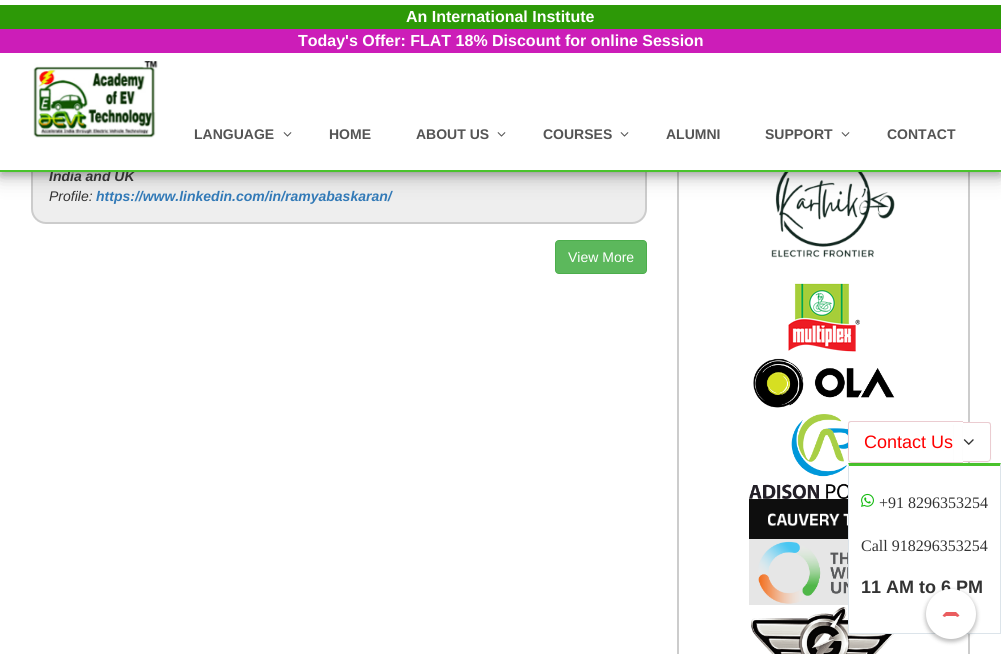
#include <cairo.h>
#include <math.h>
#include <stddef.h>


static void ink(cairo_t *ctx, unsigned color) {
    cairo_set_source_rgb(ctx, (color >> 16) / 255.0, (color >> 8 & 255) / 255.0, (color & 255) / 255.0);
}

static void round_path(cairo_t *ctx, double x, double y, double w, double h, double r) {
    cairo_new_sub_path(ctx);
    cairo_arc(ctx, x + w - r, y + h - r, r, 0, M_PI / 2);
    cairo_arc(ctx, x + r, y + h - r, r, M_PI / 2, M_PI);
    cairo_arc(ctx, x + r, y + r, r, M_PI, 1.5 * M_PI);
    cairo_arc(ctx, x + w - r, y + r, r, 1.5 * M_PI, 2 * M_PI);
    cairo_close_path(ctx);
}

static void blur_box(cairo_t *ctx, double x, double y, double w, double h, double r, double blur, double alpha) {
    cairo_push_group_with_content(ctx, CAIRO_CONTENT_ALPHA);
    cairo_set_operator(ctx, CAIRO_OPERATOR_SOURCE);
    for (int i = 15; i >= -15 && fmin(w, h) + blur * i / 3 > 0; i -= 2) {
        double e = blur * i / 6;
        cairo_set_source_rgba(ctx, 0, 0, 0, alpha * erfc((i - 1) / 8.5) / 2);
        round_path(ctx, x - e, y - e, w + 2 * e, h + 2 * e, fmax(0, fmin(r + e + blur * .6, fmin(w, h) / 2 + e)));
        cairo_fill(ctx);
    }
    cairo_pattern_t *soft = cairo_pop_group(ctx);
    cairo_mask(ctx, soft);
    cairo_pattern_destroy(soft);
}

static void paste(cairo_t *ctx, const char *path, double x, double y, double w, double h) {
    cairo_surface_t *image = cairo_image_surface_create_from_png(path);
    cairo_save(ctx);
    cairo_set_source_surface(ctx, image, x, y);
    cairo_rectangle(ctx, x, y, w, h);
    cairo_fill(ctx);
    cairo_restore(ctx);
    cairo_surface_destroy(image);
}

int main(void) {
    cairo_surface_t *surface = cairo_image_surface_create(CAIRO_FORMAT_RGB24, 1001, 654);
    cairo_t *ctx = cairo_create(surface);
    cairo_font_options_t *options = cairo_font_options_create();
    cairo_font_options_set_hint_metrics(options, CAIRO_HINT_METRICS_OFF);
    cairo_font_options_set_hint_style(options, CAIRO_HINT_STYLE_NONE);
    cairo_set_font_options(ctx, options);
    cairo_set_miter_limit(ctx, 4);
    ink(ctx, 0xFFFFFF);
    cairo_paint(ctx);
    ink(ctx, 0xEEEEEE);
    round_path(ctx, 32, -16, 614, 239, 14);
    cairo_fill_preserve(ctx);
    ink(ctx, 0xCCCCCC);
    cairo_stroke(ctx);
    cairo_rectangle(ctx, 678, 92, 291, 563);
    cairo_stroke(ctx);
    paste(ctx, "media/3.png", 771, 172, 124, 86);
    ink(ctx, 0x000000);
    blur_box(ctx, 0, 6, 1001, 172, 0, 10, 0.19);
    blur_box(ctx, 0, 4, 1001, 172, 0, 4, 0.2);
    ink(ctx, 0xFFFFFF);
    cairo_rectangle(ctx, 0, 0, 1001, 170);
    cairo_fill(ctx);
    cairo_select_font_face(ctx, "Liberation Sans", CAIRO_FONT_SLANT_ITALIC, CAIRO_FONT_WEIGHT_BOLD);
    cairo_set_font_size(ctx, 14);
    ink(ctx, 0x333333);
    cairo_move_to(ctx, 49, 181);
    cairo_show_text(ctx, "India and UK");
    ink(ctx, 0x49C32C);
    cairo_rectangle(ctx, 0, 170, 1001, 2);
    cairo_fill(ctx);
    ink(ctx, 0x2D9907);
    cairo_rectangle(ctx, 0, 5, 1001, 24);
    cairo_fill(ctx);
    cairo_select_font_face(ctx, "Liberation Sans", CAIRO_FONT_SLANT_NORMAL, CAIRO_FONT_WEIGHT_BOLD);
    cairo_set_font_size(ctx, 16);
    ink(ctx, 0xFFFFFF);
    cairo_move_to(ctx, 406, 22);
    cairo_show_text(ctx, "An International Institute");
    ink(ctx, 0xCC1DB8);
    cairo_rectangle(ctx, 0, 29, 1001, 24);
    cairo_fill(ctx);
    ink(ctx, 0xFFFFFF);
    cairo_move_to(ctx, 298, 46);
    cairo_show_text(ctx, "Today's Offer: FLAT 18% Discount for online Session");
    paste(ctx, "media/1.png", 33, 61, 125, 77);
    cairo_set_font_size(ctx, 14);
    ink(ctx, 0x545454);
    cairo_move_to(ctx, 194, 139);
    cairo_show_text(ctx, "LANGUAGE");
    paste(ctx, "media/2.png", 283, 132, 9, 5);
    cairo_move_to(ctx, 329, 139);
    cairo_show_text(ctx, "HOME");
    cairo_move_to(ctx, 416, 139);
    cairo_show_text(ctx, "ABOUT US");
    paste(ctx, "media/2.png", 497, 132, 9, 5);
    cairo_move_to(ctx, 543, 139);
    cairo_show_text(ctx, "COURSES");
    paste(ctx, "media/2.png", 620, 132, 9, 5);
    cairo_move_to(ctx, 666, 139);
    cairo_show_text(ctx, "ALUMNI");
    cairo_move_to(ctx, 765, 139);
    cairo_show_text(ctx, "SUPPORT");
    paste(ctx, "media/2.png", 841, 132, 9, 5);
    cairo_move_to(ctx, 887, 139);
    cairo_show_text(ctx, "CONTACT");
    cairo_select_font_face(ctx, "Liberation Sans", CAIRO_FONT_SLANT_ITALIC, CAIRO_FONT_WEIGHT_NORMAL);
    ink(ctx, 0x333333);
    cairo_move_to(ctx, 49, 201);
    cairo_show_text(ctx, "Profile:");
    cairo_select_font_face(ctx, "Liberation Sans", CAIRO_FONT_SLANT_ITALIC, CAIRO_FONT_WEIGHT_BOLD);
    ink(ctx, 0x337AB7);
    cairo_move_to(ctx, 96, 201);
    cairo_show_text(ctx, "https://www.linkedin.com/in/ramyabaskaran/");
    ink(ctx, 0x5CB85C);
    round_path(ctx, 555.5, 240.5, 91, 33, 3.5);
    cairo_fill_preserve(ctx);
    ink(ctx, 0x4CAE4C);
    cairo_set_line_width(ctx, 1);
    cairo_stroke(ctx);
    cairo_select_font_face(ctx, "Liberation Sans", CAIRO_FONT_SLANT_NORMAL, CAIRO_FONT_WEIGHT_NORMAL);
    ink(ctx, 0xFFFFFF);
    cairo_move_to(ctx, 568, 262);
    cairo_show_text(ctx, "View More");
    paste(ctx, "media/4.png", 788, 283, 72, 69);
    paste(ctx, "media/5.png", 753, 358, 142, 50);
    paste(ctx, "media/6.png", 749, 414, 99, 85);
    paste(ctx, "media/7.png", 749, 499, 99, 40);
    paste(ctx, "media/8.png", 749, 539, 99, 66);
    paste(ctx, "media/9.png", 751, 607, 143, 47);
    cairo_rectangle(ctx, 849, 466, 121, 167);
    cairo_fill(ctx);
    ink(ctx, 0x49C32C);
    cairo_new_path(ctx);
    cairo_move_to(ctx, 848, 463);
    cairo_line_to(ctx, 1001, 463);
    cairo_line_to(ctx, 1000, 466);
    cairo_line_to(ctx, 849, 466);
    cairo_close_path(ctx);
    cairo_fill(ctx);
    ink(ctx, 0xDCE4EA);
    cairo_new_path(ctx);
    cairo_move_to(ctx, 1001, 463);
    cairo_line_to(ctx, 1001, 634);
    cairo_line_to(ctx, 1000, 633);
    cairo_line_to(ctx, 1000, 466);
    cairo_close_path(ctx);
    cairo_fill(ctx);
    cairo_rectangle(ctx, 848, 633, 153, 1);
    cairo_fill(ctx);
    cairo_new_path(ctx);
    cairo_move_to(ctx, 848, 634);
    cairo_line_to(ctx, 848, 463);
    cairo_line_to(ctx, 849, 466);
    cairo_line_to(ctx, 849, 633);
    cairo_close_path(ctx);
    cairo_fill(ctx);
    ink(ctx, 0x000000);
    blur_box(ctx, 848, 422, 105, 42, 4, 0.5, 0.05);
    ink(ctx, 0xFFFFFF);
    cairo_new_path(ctx);
    cairo_move_to(ctx, 851, 421);
    cairo_line_to(ctx, 953, 421);
    cairo_line_to(ctx, 953, 463);
    cairo_line_to(ctx, 852, 463);
    cairo_curve_to(ctx, 850, 463, 848, 461, 848, 459);
    cairo_line_to(ctx, 848, 424);
    cairo_curve_to(ctx, 848, 422.5, 849.5, 421, 851, 421);
    cairo_close_path(ctx);
    cairo_fill(ctx);
    ink(ctx, 0xEBCCD1);
    cairo_set_fill_rule(ctx, CAIRO_FILL_RULE_EVEN_ODD);
    cairo_new_path(ctx);
    cairo_move_to(ctx, 851, 421);
    cairo_line_to(ctx, 953, 421);
    cairo_line_to(ctx, 953, 463);
    cairo_line_to(ctx, 852, 463);
    cairo_curve_to(ctx, 850, 463, 848, 461, 848, 459);
    cairo_line_to(ctx, 848, 424);
    cairo_curve_to(ctx, 848, 422, 849, 421, 851, 421);
    cairo_close_path(ctx);
    cairo_move_to(ctx, 851, 422);
    cairo_line_to(ctx, 953, 422);
    cairo_line_to(ctx, 953, 462);
    cairo_line_to(ctx, 852, 462);
    cairo_curve_to(ctx, 850, 462, 849, 461, 849, 459);
    cairo_line_to(ctx, 849, 424);
    cairo_curve_to(ctx, 849, 423, 850, 422, 851, 422);
    cairo_close_path(ctx);
    cairo_fill(ctx);
    cairo_rectangle(ctx, 953, 421, 10, 1);
    cairo_fill(ctx);
    cairo_rectangle(ctx, 953, 462, 10, 1);
    cairo_fill(ctx);
    ink(ctx, 0x000000);
    blur_box(ctx, 963, 423, 28, 40, 4, 0.5, 0.05);
    ink(ctx, 0xFFFFFF);
    cairo_new_path(ctx);
    cairo_move_to(ctx, 963, 422);
    cairo_line_to(ctx, 988, 422);
    cairo_curve_to(ctx, 989.5, 422, 991, 423.5, 991, 425);
    cairo_line_to(ctx, 991, 458);
    cairo_curve_to(ctx, 991, 460, 989, 462, 987, 462);
    cairo_line_to(ctx, 963, 462);
    cairo_close_path(ctx);
    cairo_fill(ctx);
    ink(ctx, 0xEBCCD1);
    cairo_new_path(ctx);
    cairo_move_to(ctx, 963, 422);
    cairo_line_to(ctx, 988, 422);
    cairo_curve_to(ctx, 990, 422, 991, 423, 991, 425);
    cairo_line_to(ctx, 991, 458);
    cairo_curve_to(ctx, 991, 460, 989, 462, 987, 462);
    cairo_line_to(ctx, 963, 462);
    cairo_close_path(ctx);
    cairo_move_to(ctx, 963, 423);
    cairo_line_to(ctx, 988, 423);
    cairo_curve_to(ctx, 989, 423, 990, 424, 990, 425);
    cairo_line_to(ctx, 990, 458);
    cairo_curve_to(ctx, 990, 460, 989, 461, 987, 461);
    cairo_line_to(ctx, 963, 461);
    cairo_close_path(ctx);
    cairo_fill(ctx);
    cairo_set_font_size(ctx, 18);
    ink(ctx, 0xFF0000);
    cairo_move_to(ctx, 864, 448);
    cairo_show_text(ctx, "Contact Us");
    paste(ctx, "media/10.png", 963, 439, 11, 6);
    paste(ctx, "media/11.png", 861, 493, 13, 14);
    cairo_select_font_face(ctx, "Liberation Serif", CAIRO_FONT_SLANT_NORMAL, CAIRO_FONT_WEIGHT_NORMAL);
    cairo_set_font_size(ctx, 16);
    ink(ctx, 0x333333);
    cairo_move_to(ctx, 879, 508);
    cairo_show_text(ctx, "+91 8296353254");
    cairo_move_to(ctx, 861, 551);
    cairo_show_text(ctx, "Call 918296353254");
    cairo_select_font_face(ctx, "Liberation Sans", CAIRO_FONT_SLANT_NORMAL, CAIRO_FONT_WEIGHT_BOLD);
    cairo_set_font_size(ctx, 18);
    cairo_move_to(ctx, 861, 593);
    cairo_show_text(ctx, "11 AM to 6 PM");
    ink(ctx, 0x000000);
    blur_box(ctx, 925, 590, 52, 52, 26, 2, 0.25);
    ink(ctx, 0xFFFFFF);
    cairo_arc(ctx, 951, 614, 25, 0, 2 * M_PI);
    cairo_fill(ctx);
    ink(ctx, 0xEA5D5F);
    cairo_set_fill_rule(ctx, CAIRO_FILL_RULE_WINDING);
    cairo_new_path(ctx);
    cairo_move_to(ctx, 959.5, 615.5);
    cairo_line_to(ctx, 956, 612);
    cairo_line_to(ctx, 946, 612);
    cairo_line_to(ctx, 942.5, 615.5);
    cairo_curve_to(ctx, 944.5, 618, 948.5, 617, 951, 617);
    cairo_curve_to(ctx, 953.5, 617, 957.5, 618, 959.5, 615.5);
    cairo_close_path(ctx);
    cairo_fill(ctx);
    ink(ctx, 0xFFFFFF);
    cairo_new_path(ctx);
    cairo_move_to(ctx, 959.5, 619.5);
    cairo_line_to(ctx, 956, 616);
    cairo_line_to(ctx, 946, 616);
    cairo_line_to(ctx, 942.5, 619.5);
    cairo_curve_to(ctx, 944.5, 622, 948.5, 621, 951, 621);
    cairo_curve_to(ctx, 953.5, 621, 957.5, 622, 959.5, 619.5);
    cairo_close_path(ctx);
    cairo_fill(ctx);
    cairo_surface_write_to_png(surface, "image.png");
    cairo_font_options_destroy(options);
    cairo_destroy(ctx);
    cairo_surface_destroy(surface);
    return 0;
}
